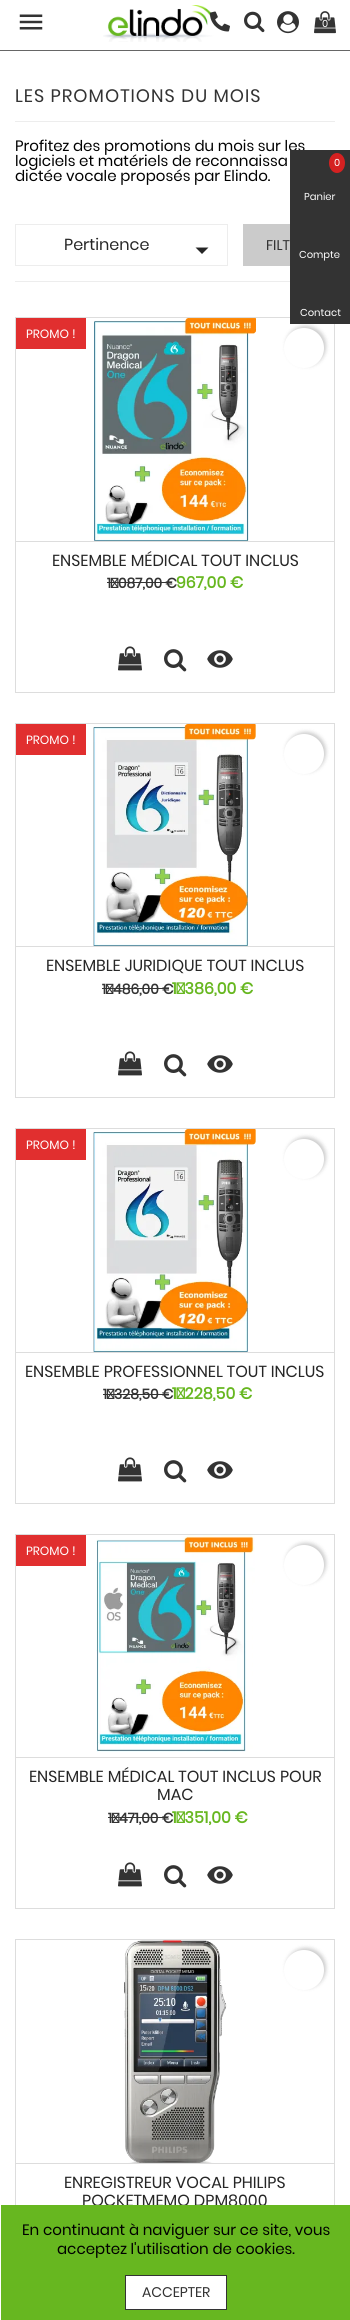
#include <cairo.h>
#include <math.h>
#include <stddef.h>

typedef struct { double x, y; const char *s; } line_t;

static void ink(cairo_t *ctx, unsigned color) {
    cairo_set_source_rgb(ctx, (color >> 16) / 255.0, (color >> 8 & 255) / 255.0, (color & 255) / 255.0);
}

static void write_spaced(cairo_t *ctx, double x, double y, const char *s, double letter, double word) {
    cairo_move_to(ctx, x, y);
    while (*s) {
        char ch[5] = {0};
        int n = 0;
        do ch[n++] = *s++; while ((*s & 0xC0) == 0x80);
        cairo_show_text(ctx, ch);
        cairo_rel_move_to(ctx, letter + word * (*ch == ' '), 0);
    }
}

static void round_path(cairo_t *ctx, double x, double y, double w, double h, double r) {
    cairo_new_sub_path(ctx);
    cairo_arc(ctx, x + w - r, y + h - r, r, 0, M_PI / 2);
    cairo_arc(ctx, x + r, y + h - r, r, M_PI / 2, M_PI);
    cairo_arc(ctx, x + r, y + r, r, M_PI, 1.5 * M_PI);
    cairo_arc(ctx, x + w - r, y + r, r, 1.5 * M_PI, 2 * M_PI);
    cairo_close_path(ctx);
}

static void blur_box(cairo_t *ctx, double x, double y, double w, double h, double r, double blur, double alpha) {
    cairo_push_group_with_content(ctx, CAIRO_CONTENT_ALPHA);
    cairo_set_operator(ctx, CAIRO_OPERATOR_SOURCE);
    for (int i = 15; i >= -15 && fmin(w, h) + blur * i / 3 > 0; i -= 2) {
        double e = blur * i / 6;
        cairo_set_source_rgba(ctx, 0, 0, 0, alpha * erfc((i - 1) / 8.5) / 2);
        round_path(ctx, x - e, y - e, w + 2 * e, h + 2 * e, fmax(0, fmin(r + e + blur * .6, fmin(w, h) / 2 + e)));
        cairo_fill(ctx);
    }
    cairo_pattern_t *soft = cairo_pop_group(ctx);
    cairo_mask(ctx, soft);
    cairo_pattern_destroy(soft);
}

static void paste(cairo_t *ctx, const char *path, double x, double y, double w, double h) {
    cairo_surface_t *image = cairo_image_surface_create_from_png(path);
    cairo_save(ctx);
    cairo_set_source_surface(ctx, image, x, y);
    cairo_rectangle(ctx, x, y, w, h);
    cairo_fill(ctx);
    cairo_restore(ctx);
    cairo_surface_destroy(image);
}

int main(void) {
    cairo_surface_t *surface = cairo_image_surface_create(CAIRO_FORMAT_RGB24, 350, 2320);
    cairo_t *ctx = cairo_create(surface);
    cairo_font_options_t *options = cairo_font_options_create();
    cairo_font_options_set_hint_metrics(options, CAIRO_HINT_METRICS_OFF);
    cairo_font_options_set_hint_style(options, CAIRO_HINT_STYLE_NONE);
    cairo_set_font_options(ctx, options);
    cairo_set_miter_limit(ctx, 4);
    ink(ctx, 0xFFFFFF);
    cairo_paint(ctx);
    ink(ctx, 0x666666);
    cairo_rectangle(ctx, 0, 50, 350, 1);
    cairo_fill(ctx);
    paste(ctx, "media/5.png", 103, 5, 112, 37);
    paste(ctx, "media/1.png", 210, 11, 20, 21);
    paste(ctx, "media/2.png", 244, 11, 21, 22);
    paste(ctx, "media/3.png", 277, 11, 22, 23);
    paste(ctx, "media/4.png", 19, 14, 24, 16);
    paste(ctx, "media/6.png", 314, 11, 22, 23);
    cairo_select_font_face(ctx, "Poppins", CAIRO_FONT_SLANT_NORMAL, CAIRO_FONT_WEIGHT_NORMAL);
    cairo_set_font_size(ctx, 10);
    ink(ctx, 0xFFFFFF);
    cairo_move_to(ctx, 322, 27);
    cairo_show_text(ctx, "0");
    cairo_set_font_size(ctx, 15);
    ink(ctx, 0x000000);
    cairo_move_to(ctx, 15, 151);
    cairo_show_text(ctx, "Profitez des promotions du mois sur les");
    cairo_rectangle(ctx, 15.5, 317.5, 319, 375);
    ink(ctx, 0xDDDDDD);
    cairo_set_line_width(ctx, 1);
    cairo_stroke(ctx);
    ink(ctx, 0x000000);
    blur_box(ctx, 286, 326, 40, 40, 20, 2, 0.2);
    ink(ctx, 0x333333);
    cairo_rectangle(ctx, 290, 150, 60, 174);
    cairo_fill(ctx);
    ink(ctx, 0xD52121);
    cairo_new_path(ctx);
    cairo_move_to(ctx, 337, 153);
    cairo_curve_to(ctx, 341.5, 153, 345, 157.5, 345, 163);
    cairo_curve_to(ctx, 345, 168.5, 341.5, 173, 337, 173);
    cairo_curve_to(ctx, 332.5, 173, 329, 168.5, 329, 163);
    cairo_curve_to(ctx, 329, 157.5, 332.5, 153, 337, 153);
    cairo_close_path(ctx);
    cairo_fill(ctx);
    cairo_set_font_size(ctx, 10);
    ink(ctx, 0xFFFFFF);
    {
        static const line_t items[] = {
            {334, 166, "0"},
            {304, 200, "Panier"},
            {299, 258, "Compte"},
            {300, 316, "Contact"},
        };
        for (size_t i = 0; i < sizeof items / sizeof *items; i++) {
            cairo_move_to(ctx, items[i].x, items[i].y);
            cairo_show_text(ctx, items[i].s);
        }
    }
    ink(ctx, 0xEDEDED);
    cairo_rectangle(ctx, 15, 121, 320, 1);
    cairo_fill(ctx);
    cairo_set_font_size(ctx, 18);
    ink(ctx, 0x333333);
    write_spaced(ctx, 15, 102, "LES PROMOTIONS DU MOIS", 1, 0);
    cairo_set_font_size(ctx, 15);
    ink(ctx, 0x000000);
    cairo_move_to(ctx, 15, 166);
    cairo_show_text(ctx, "logiciels et matériels de reconnaissa");
    cairo_move_to(ctx, 15, 181);
    cairo_show_text(ctx, "dictée vocale proposés par Elindo.");
    ink(ctx, 0xEDEDED);
    cairo_rectangle(ctx, 15, 281, 275, 1);
    cairo_fill(ctx);
    cairo_rectangle(ctx, 15.5, 224.5, 212, 41);
    cairo_stroke(ctx);
    cairo_set_font_size(ctx, 16);
    ink(ctx, 0x262626);
    cairo_move_to(ctx, 64, 250);
    cairo_show_text(ctx, "Pertinence");
    cairo_new_path(ctx);
    cairo_move_to(ctx, 195.5, 247.5);
    cairo_line_to(ctx, 208.5, 247.5);
    cairo_line_to(ctx, 202, 254);
    cairo_close_path(ctx);
    cairo_fill(ctx);
    ink(ctx, 0xCBCBCB);
    cairo_rectangle(ctx, 243, 224, 47, 42);
    cairo_fill(ctx);
    cairo_set_font_size(ctx, 14);
    ink(ctx, 0x333333);
    cairo_move_to(ctx, 266, 250);
    cairo_show_text(ctx, "FILT");
    ink(ctx, 0xE12F2F);
    cairo_rectangle(ctx, 16, 318, 70, 31);
    cairo_fill(ctx);
    cairo_set_font_size(ctx, 12);
    ink(ctx, 0xFFFFFF);
    cairo_move_to(ctx, 26, 338);
    cairo_show_text(ctx, "PROMO !");
    paste(ctx, "media/7.png", 94, 318, 162, 223);
    cairo_arc(ctx, 304, 348, 20, 0, 2 * M_PI);
    cairo_fill(ctx);
    ink(ctx, 0xDDDDDD);
    cairo_rectangle(ctx, 16, 541, 318, 1);
    cairo_fill(ctx);
    cairo_set_font_size(ctx, 16);
    ink(ctx, 0x262626);
    cairo_move_to(ctx, 52, 566);
    cairo_show_text(ctx, "ENSEMBLE MÉDICAL TOUT INCLUS");
    cairo_select_font_face(ctx, "Poppins", CAIRO_FONT_SLANT_NORMAL, CAIRO_FONT_WEIGHT_BOLD);
    cairo_set_font_size(ctx, 14);
    ink(ctx, 0x333333);
    cairo_move_to(ctx, 107, 588);
    cairo_show_text(ctx, "1 087,00 €");
    cairo_rectangle(ctx, 107, 582, 65, 1);
    cairo_fill(ctx);
    cairo_set_font_size(ctx, 16);
    ink(ctx, 0x67B720);
    cairo_move_to(ctx, 176, 588);
    cairo_show_text(ctx, "967,00 €");
    paste(ctx, "media/8.png", 118, 646, 24, 25);
    paste(ctx, "media/9.png", 164, 649, 23, 23);
    paste(ctx, "media/10.png", 207, 650, 26, 18);
    cairo_rectangle(ctx, 15.5, 723.5, 319, 374);
    ink(ctx, 0xDDDDDD);
    cairo_stroke(ctx);
    ink(ctx, 0xE12F2F);
    cairo_rectangle(ctx, 16, 724, 70, 31);
    cairo_fill(ctx);
    cairo_select_font_face(ctx, "Poppins", CAIRO_FONT_SLANT_NORMAL, CAIRO_FONT_WEIGHT_NORMAL);
    cairo_set_font_size(ctx, 12);
    ink(ctx, 0xFFFFFF);
    cairo_move_to(ctx, 26, 744);
    cairo_show_text(ctx, "PROMO !");
    paste(ctx, "media/11.png", 93, 724, 163, 222);
    ink(ctx, 0x000000);
    blur_box(ctx, 286, 732, 40, 40, 20, 2, 0.2);
    ink(ctx, 0xFFFFFF);
    cairo_arc(ctx, 304, 754, 20, 0, 2 * M_PI);
    cairo_fill(ctx);
    ink(ctx, 0xDDDDDD);
    cairo_rectangle(ctx, 16, 946, 318, 1);
    cairo_fill(ctx);
    cairo_set_font_size(ctx, 16);
    ink(ctx, 0x262626);
    cairo_move_to(ctx, 46, 971);
    cairo_show_text(ctx, "ENSEMBLE JURIDIQUE TOUT INCLUS");
    cairo_select_font_face(ctx, "Poppins", CAIRO_FONT_SLANT_NORMAL, CAIRO_FONT_WEIGHT_BOLD);
    cairo_set_font_size(ctx, 14);
    ink(ctx, 0x333333);
    cairo_move_to(ctx, 102, 994);
    cairo_show_text(ctx, "1 486,00 €");
    cairo_rectangle(ctx, 102, 988, 67, 1);
    cairo_fill(ctx);
    cairo_set_font_size(ctx, 16);
    ink(ctx, 0x67B720);
    cairo_move_to(ctx, 172, 994);
    cairo_show_text(ctx, "1 386,00 €");
    paste(ctx, "media/8.png", 118, 1051, 24, 25);
    paste(ctx, "media/9.png", 164, 1054, 23, 23);
    paste(ctx, "media/10.png", 207, 1055, 26, 18);
    cairo_rectangle(ctx, 15.5, 1128.5, 319, 375);
    ink(ctx, 0xDDDDDD);
    cairo_stroke(ctx);
    ink(ctx, 0xE12F2F);
    cairo_rectangle(ctx, 16, 1129, 70, 31);
    cairo_fill(ctx);
    cairo_select_font_face(ctx, "Poppins", CAIRO_FONT_SLANT_NORMAL, CAIRO_FONT_WEIGHT_NORMAL);
    cairo_set_font_size(ctx, 12);
    ink(ctx, 0xFFFFFF);
    cairo_move_to(ctx, 26, 1149);
    cairo_show_text(ctx, "PROMO !");
    paste(ctx, "media/12.png", 93, 1129, 163, 223);
    ink(ctx, 0x000000);
    blur_box(ctx, 286, 1137, 40, 40, 20, 2, 0.2);
    ink(ctx, 0xFFFFFF);
    cairo_arc(ctx, 304, 1159, 20, 0, 2 * M_PI);
    cairo_fill(ctx);
    ink(ctx, 0xDDDDDD);
    cairo_rectangle(ctx, 16, 1352, 318, 1);
    cairo_fill(ctx);
    cairo_set_font_size(ctx, 16);
    ink(ctx, 0x262626);
    cairo_move_to(ctx, 25, 1377);
    cairo_show_text(ctx, "ENSEMBLE PROFESSIONNEL TOUT INCLUS");
    cairo_select_font_face(ctx, "Poppins", CAIRO_FONT_SLANT_NORMAL, CAIRO_FONT_WEIGHT_BOLD);
    cairo_set_font_size(ctx, 14);
    ink(ctx, 0x333333);
    cairo_move_to(ctx, 103, 1399);
    cairo_show_text(ctx, "1 328,50 €");
    cairo_rectangle(ctx, 103, 1394, 66, 1);
    cairo_fill(ctx);
    cairo_set_font_size(ctx, 16);
    ink(ctx, 0x67B720);
    cairo_move_to(ctx, 172, 1399);
    cairo_show_text(ctx, "1 228,50 €");
    paste(ctx, "media/8.png", 118, 1457, 24, 25);
    paste(ctx, "media/9.png", 164, 1460, 23, 23);
    paste(ctx, "media/10.png", 207, 1461, 26, 18);
    cairo_rectangle(ctx, 15.5, 1534.5, 319, 374);
    ink(ctx, 0xDDDDDD);
    cairo_stroke(ctx);
    ink(ctx, 0xE12F2F);
    cairo_rectangle(ctx, 16, 1535, 70, 31);
    cairo_fill(ctx);
    cairo_select_font_face(ctx, "Poppins", CAIRO_FONT_SLANT_NORMAL, CAIRO_FONT_WEIGHT_NORMAL);
    cairo_set_font_size(ctx, 12);
    ink(ctx, 0xFFFFFF);
    cairo_move_to(ctx, 26, 1555);
    cairo_show_text(ctx, "PROMO !");
    paste(ctx, "media/13.png", 96, 1535, 159, 217);
    ink(ctx, 0x000000);
    blur_box(ctx, 286, 1543, 40, 40, 20, 2, 0.2);
    ink(ctx, 0xFFFFFF);
    cairo_arc(ctx, 304, 1565, 20, 0, 2 * M_PI);
    cairo_fill(ctx);
    ink(ctx, 0xDDDDDD);
    cairo_rectangle(ctx, 16, 1757, 318, 1);
    cairo_fill(ctx);
    cairo_set_font_size(ctx, 16);
    ink(ctx, 0x262626);
    cairo_move_to(ctx, 29, 1782);
    cairo_show_text(ctx, "ENSEMBLE MÉDICAL TOUT INCLUS POUR");
    cairo_move_to(ctx, 157, 1800);
    cairo_show_text(ctx, "MAC");
    cairo_select_font_face(ctx, "Poppins", CAIRO_FONT_SLANT_NORMAL, CAIRO_FONT_WEIGHT_BOLD);
    cairo_set_font_size(ctx, 14);
    ink(ctx, 0x333333);
    cairo_move_to(ctx, 108, 1823);
    cairo_show_text(ctx, "1 471,00 €");
    cairo_rectangle(ctx, 108, 1817, 60, 1);
    cairo_fill(ctx);
    cairo_set_font_size(ctx, 16);
    ink(ctx, 0x67B720);
    cairo_move_to(ctx, 172, 1823);
    cairo_show_text(ctx, "1 351,00 €");
    paste(ctx, "media/8.png", 118, 1862, 24, 25);
    paste(ctx, "media/9.png", 164, 1865, 23, 23);
    paste(ctx, "media/10.png", 207, 1866, 26, 18);
    cairo_rectangle(ctx, 15.5, 1939.5, 319, 375);
    ink(ctx, 0xDDDDDD);
    cairo_stroke(ctx);
    paste(ctx, "media/14.png", 124, 1940, 103, 223);
    ink(ctx, 0x000000);
    blur_box(ctx, 286, 1948, 40, 40, 20, 2, 0.2);
    ink(ctx, 0xFFFFFF);
    cairo_arc(ctx, 304, 1970, 20, 0, 2 * M_PI);
    cairo_fill(ctx);
    ink(ctx, 0xDDDDDD);
    cairo_rectangle(ctx, 16, 2163, 318, 1);
    cairo_fill(ctx);
    cairo_select_font_face(ctx, "Poppins", CAIRO_FONT_SLANT_NORMAL, CAIRO_FONT_WEIGHT_NORMAL);
    ink(ctx, 0x262626);
    cairo_move_to(ctx, 64, 2188);
    cairo_show_text(ctx, "ENREGISTREUR VOCAL PHILIPS");
    cairo_move_to(ctx, 82, 2206);
    cairo_show_text(ctx, "POCKETMEMO DPM8000");
    ink(ctx, 0x67B720);
    cairo_rectangle(ctx, 1, 2205, 349, 115);
    cairo_fill(ctx);
    cairo_set_font_size(ctx, 15);
    ink(ctx, 0x000000);
    cairo_move_to(ctx, 22, 2235);
    cairo_show_text(ctx, "En continuant à naviguer sur ce site, vous");
    cairo_move_to(ctx, 57, 2254);
    cairo_show_text(ctx, "acceptez l'utilisation de cookies.");
    ink(ctx, 0xFFFFFF);
    cairo_rectangle(ctx, 125.5, 2275.5, 101, 34);
    cairo_fill_preserve(ctx);
    ink(ctx, 0x333333);
    cairo_stroke(ctx);
    cairo_set_font_size(ctx, 14);
    cairo_move_to(ctx, 142, 2297);
    cairo_show_text(ctx, "ACCEPTER");
    cairo_surface_write_to_png(surface, "image.png");
    cairo_font_options_destroy(options);
    cairo_destroy(ctx);
    cairo_surface_destroy(surface);
    return 0;
}
